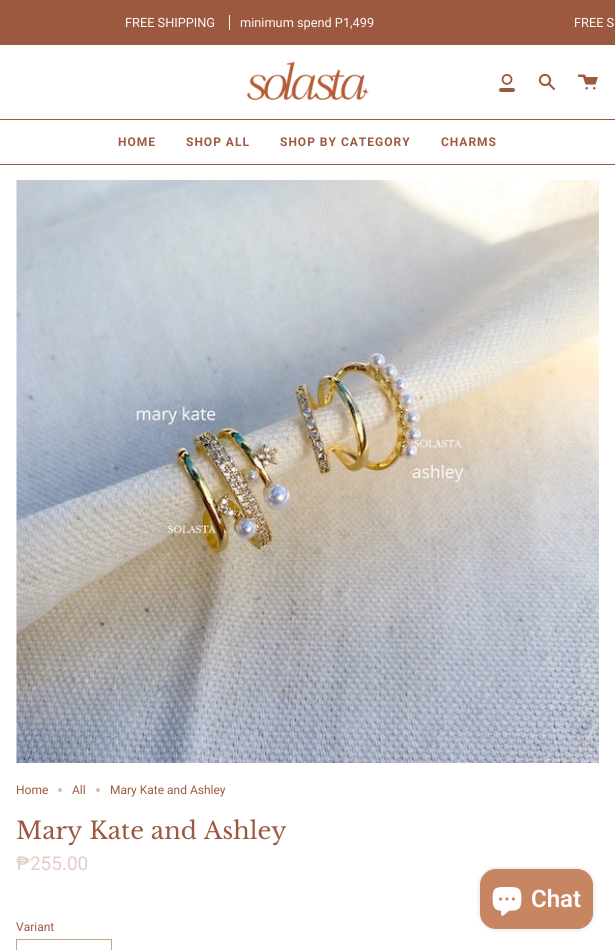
#include <cairo.h>
#include <math.h>
#include <stddef.h>

typedef struct { double x, y; const char *s; } line_t;

static void ink(cairo_t *ctx, unsigned color) {
    cairo_set_source_rgb(ctx, (color >> 16) / 255.0, (color >> 8 & 255) / 255.0, (color & 255) / 255.0);
}

static void write_spaced(cairo_t *ctx, double x, double y, const char *s, double letter, double word) {
    cairo_move_to(ctx, x, y);
    while (*s) {
        char ch[5] = {0};
        int n = 0;
        do ch[n++] = *s++; while ((*s & 0xC0) == 0x80);
        cairo_show_text(ctx, ch);
        cairo_rel_move_to(ctx, letter + word * (*ch == ' '), 0);
    }
}

static void round_path(cairo_t *ctx, double x, double y, double w, double h, double r) {
    cairo_new_sub_path(ctx);
    cairo_arc(ctx, x + w - r, y + h - r, r, 0, M_PI / 2);
    cairo_arc(ctx, x + r, y + h - r, r, M_PI / 2, M_PI);
    cairo_arc(ctx, x + r, y + r, r, M_PI, 1.5 * M_PI);
    cairo_arc(ctx, x + w - r, y + r, r, 1.5 * M_PI, 2 * M_PI);
    cairo_close_path(ctx);
}

static void blur_box(cairo_t *ctx, double x, double y, double w, double h, double r, double blur, double alpha) {
    cairo_push_group_with_content(ctx, CAIRO_CONTENT_ALPHA);
    cairo_set_operator(ctx, CAIRO_OPERATOR_SOURCE);
    for (int i = 15; i >= -15 && fmin(w, h) + blur * i / 3 > 0; i -= 2) {
        double e = blur * i / 6;
        cairo_set_source_rgba(ctx, 0, 0, 0, alpha * erfc((i - 1) / 8.5) / 2);
        round_path(ctx, x - e, y - e, w + 2 * e, h + 2 * e, fmax(0, fmin(r + e + blur * .6, fmin(w, h) / 2 + e)));
        cairo_fill(ctx);
    }
    cairo_pattern_t *soft = cairo_pop_group(ctx);
    cairo_mask(ctx, soft);
    cairo_pattern_destroy(soft);
}

static void paste(cairo_t *ctx, const char *path, double x, double y, double w, double h) {
    cairo_surface_t *image = cairo_image_surface_create_from_png(path);
    cairo_save(ctx);
    cairo_set_source_surface(ctx, image, x, y);
    cairo_rectangle(ctx, x, y, w, h);
    cairo_fill(ctx);
    cairo_restore(ctx);
    cairo_surface_destroy(image);
}

int main(void) {
    cairo_surface_t *surface = cairo_image_surface_create(CAIRO_FORMAT_RGB24, 615, 950);
    cairo_t *ctx = cairo_create(surface);
    cairo_font_options_t *options = cairo_font_options_create();
    cairo_font_options_set_hint_metrics(options, CAIRO_HINT_METRICS_OFF);
    cairo_font_options_set_hint_style(options, CAIRO_HINT_STYLE_NONE);
    cairo_set_font_options(ctx, options);
    cairo_set_miter_limit(ctx, 4);
    ink(ctx, 0xFFFFFF);
    cairo_paint(ctx);
    ink(ctx, 0x9C5940);
    cairo_rectangle(ctx, 0, 0, 615, 45);
    cairo_fill(ctx);
    cairo_select_font_face(ctx, "Roboto", CAIRO_FONT_SLANT_NORMAL, CAIRO_FONT_WEIGHT_NORMAL);
    cairo_set_font_size(ctx, 12.75);
    ink(ctx, 0xFCF9F9);
    cairo_move_to(ctx, 125, 27);
    cairo_show_text(ctx, "FREE SHIPPING");
    cairo_rectangle(ctx, 229, 15, 1, 15);
    cairo_fill(ctx);
    cairo_move_to(ctx, 240, 27);
    cairo_show_text(ctx, "minimum spend P1,499");
    cairo_move_to(ctx, 574, 27);
    cairo_show_text(ctx, "FREE S");
    ink(ctx, 0x9C5940);
    cairo_rectangle(ctx, 0, 164, 615, 1);
    cairo_fill(ctx);
    paste(ctx, "media/1.png", 247, 61, 122, 39);
    paste(ctx, "media/2.png", 499, 74, 16, 18);
    paste(ctx, "media/3.png", 538, 73, 17, 17);
    paste(ctx, "media/4.png", 578, 74, 20, 16);
    cairo_rectangle(ctx, 0, 119, 615, 1);
    cairo_fill(ctx);
    cairo_select_font_face(ctx, "Roboto", CAIRO_FONT_SLANT_NORMAL, CAIRO_FONT_WEIGHT_BOLD);
    cairo_set_font_size(ctx, 12);
    {
        static const line_t items[] = {
            {118, 146, "HOME"},
            {186, 146, "SHOP ALL"},
            {280, 146, "SHOP BY CATEGORY"},
            {441, 146, "CHARMS"},
        };
        for (size_t i = 0; i < sizeof items / sizeof *items; i++) {
            write_spaced(ctx, items[i].x, items[i].y, items[i].s, 1, 0);
        }
    }
    paste(ctx, "media/5.png", 16, 180, 583, 583);
    cairo_select_font_face(ctx, "Roboto", CAIRO_FONT_SLANT_NORMAL, CAIRO_FONT_WEIGHT_NORMAL);
    cairo_move_to(ctx, 16, 794);
    cairo_show_text(ctx, "Home");
    ink(ctx, 0xD7BDB3);
    cairo_new_path(ctx);
    cairo_arc(ctx, 60, 790, 2, 0, 2 * M_PI);
    cairo_fill(ctx);
    ink(ctx, 0x9C5940);
    cairo_move_to(ctx, 72, 794);
    cairo_show_text(ctx, "All");
    ink(ctx, 0xD7BDB3);
    cairo_new_path(ctx);
    cairo_arc(ctx, 98, 790, 2, 0, 2 * M_PI);
    cairo_fill(ctx);
    ink(ctx, 0x9C5940);
    cairo_move_to(ctx, 110, 794);
    cairo_show_text(ctx, "Mary Kate and Ashley");
    cairo_select_font_face(ctx, "Libre Baskerville", CAIRO_FONT_SLANT_NORMAL, CAIRO_FONT_WEIGHT_NORMAL);
    cairo_set_font_size(ctx, 24);
    cairo_move_to(ctx, 16, 839);
    cairo_show_text(ctx, "Mary Kate and Ashley");
    cairo_select_font_face(ctx, "Roboto", CAIRO_FONT_SLANT_NORMAL, CAIRO_FONT_WEIGHT_NORMAL);
    cairo_set_font_size(ctx, 19);
    ink(ctx, 0xE1CDC6);
    cairo_move_to(ctx, 16, 870);
    cairo_show_text(ctx, "₱255.00");
    cairo_set_font_size(ctx, 12);
    ink(ctx, 0x9C5940);
    cairo_move_to(ctx, 16, 931);
    cairo_show_text(ctx, "Variant");
    cairo_rectangle(ctx, 16.5, 939.5, 95, 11);
    ink(ctx, 0xBEA781);
    cairo_set_line_width(ctx, 1);
    cairo_stroke(ctx);
    ink(ctx, 0x000000);
    blur_box(ctx, 480, 869, 113, 60, 16, 2.5, 0.15);
    ink(ctx, 0xC78561);
    round_path(ctx, 480, 869, 113, 60, 16);
    cairo_fill(ctx);
    paste(ctx, "media/6.png", 492, 887, 30, 29);
    cairo_select_font_face(ctx, "Roboto SemiBold", CAIRO_FONT_SLANT_NORMAL, CAIRO_FONT_WEIGHT_NORMAL);
    cairo_set_font_size(ctx, 24);
    ink(ctx, 0xFFFFFF);
    cairo_move_to(ctx, 531, 907);
    cairo_show_text(ctx, "Chat");
    cairo_surface_write_to_png(surface, "image.png");
    cairo_font_options_destroy(options);
    cairo_destroy(ctx);
    cairo_surface_destroy(surface);
    return 0;
}
